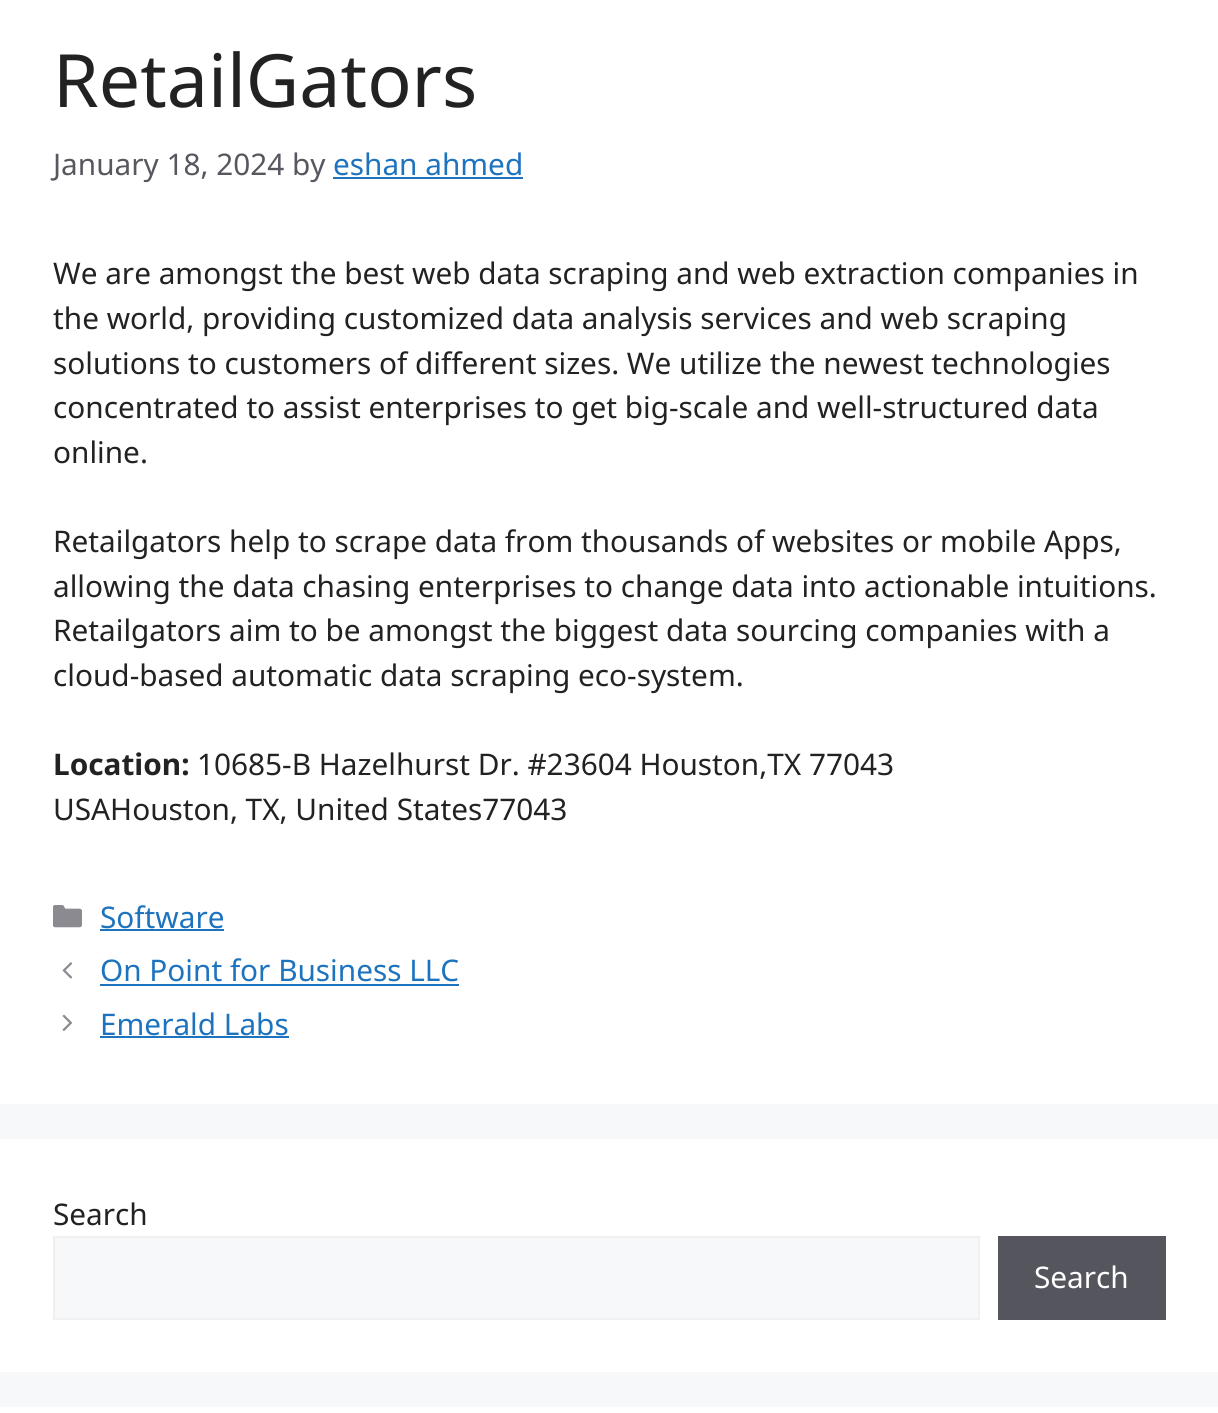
#include <cairo.h>
#include <math.h>
#include <stddef.h>

typedef struct { double x, y; const char *s; } line_t;

static void ink(cairo_t *ctx, unsigned color) {
    cairo_set_source_rgb(ctx, (color >> 16) / 255.0, (color >> 8 & 255) / 255.0, (color & 255) / 255.0);
}

static void paste(cairo_t *ctx, const char *path, double x, double y, double w, double h) {
    cairo_surface_t *image = cairo_image_surface_create_from_png(path);
    cairo_save(ctx);
    cairo_set_source_surface(ctx, image, x, y);
    cairo_rectangle(ctx, x, y, w, h);
    cairo_fill(ctx);
    cairo_restore(ctx);
    cairo_surface_destroy(image);
}

int main(void) {
    cairo_surface_t *surface = cairo_image_surface_create(CAIRO_FORMAT_RGB24, 1218, 1413);
    cairo_t *ctx = cairo_create(surface);
    cairo_font_options_t *options = cairo_font_options_create();
    cairo_font_options_set_hint_metrics(options, CAIRO_HINT_METRICS_OFF);
    cairo_font_options_set_hint_style(options, CAIRO_HINT_STYLE_NONE);
    cairo_set_font_options(ctx, options);
    cairo_set_miter_limit(ctx, 4);
    ink(ctx, 0xF7F8F9);
    cairo_paint(ctx);
    ink(ctx, 0xFFFFFF);
    cairo_rectangle(ctx, 0, 0, 1218, 1104);
    cairo_fill(ctx);
    cairo_select_font_face(ctx, "Noto Sans", CAIRO_FONT_SLANT_NORMAL, CAIRO_FONT_WEIGHT_NORMAL);
    cairo_set_font_size(ctx, 73.5);
    ink(ctx, 0x222222);
    cairo_move_to(ctx, 53, 107);
    cairo_show_text(ctx, "RetailGators");
    cairo_set_font_size(ctx, 29.75);
    ink(ctx, 0x575760);
    cairo_move_to(ctx, 53, 175);
    cairo_show_text(ctx, "January 18, 2024 by");
    ink(ctx, 0x1E73BE);
    cairo_move_to(ctx, 333, 175);
    cairo_show_text(ctx, "eshan ahmed");
    cairo_rectangle(ctx, 333, 177, 190, 2);
    cairo_fill(ctx);
    ink(ctx, 0x222222);
    {
        static const line_t items[] = {
            {53, 284, "We are amongst the best web data scraping and web extraction companies in"},
            {53, 329, "the world, providing customized data analysis services and web scraping"},
            {53, 374, "solutions to customers of different sizes. We utilize the newest technologies"},
            {53, 418, "concentrated to assist enterprises to get big-scale and well-structured data"},
            {53, 463, "online."},
            {53, 552, "Retailgators help to scrape data from thousands of websites or mobile Apps,"},
            {53, 597, "allowing the data chasing enterprises to change data into actionable intuitions."},
            {53, 641, "Retailgators aim to be amongst the biggest data sourcing companies with a"},
            {53, 686, "cloud-based automatic data scraping eco-system."},
        };
        for (size_t i = 0; i < sizeof items / sizeof *items; i++) {
            cairo_move_to(ctx, items[i].x, items[i].y);
            cairo_show_text(ctx, items[i].s);
        }
    }
    cairo_select_font_face(ctx, "Noto Sans", CAIRO_FONT_SLANT_NORMAL, CAIRO_FONT_WEIGHT_BOLD);
    cairo_move_to(ctx, 53, 775);
    cairo_show_text(ctx, "Location:");
    cairo_select_font_face(ctx, "Noto Sans", CAIRO_FONT_SLANT_NORMAL, CAIRO_FONT_WEIGHT_NORMAL);
    cairo_move_to(ctx, 197, 775);
    cairo_show_text(ctx, "10685-B Hazelhurst Dr. #23604 Houston,TX 77043");
    cairo_move_to(ctx, 53, 820);
    cairo_show_text(ctx, "USAHouston, TX, United States77043");
    paste(ctx, "media/1.png", 53, 905, 29, 23);
    ink(ctx, 0x1E73BE);
    cairo_move_to(ctx, 100, 928);
    cairo_show_text(ctx, "Software");
    cairo_rectangle(ctx, 100, 929, 124, 2);
    cairo_fill(ctx);
    paste(ctx, "media/2.png", 62, 962, 11, 17);
    cairo_move_to(ctx, 100, 981);
    cairo_show_text(ctx, "On Point for Business LLC");
    cairo_rectangle(ctx, 100, 984, 359, 2);
    cairo_fill(ctx);
    paste(ctx, "media/3.png", 62, 1014, 11, 17);
    cairo_move_to(ctx, 100, 1035);
    cairo_show_text(ctx, "Emerald Labs");
    cairo_rectangle(ctx, 100, 1036, 189, 2);
    cairo_fill(ctx);
    ink(ctx, 0xFFFFFF);
    cairo_rectangle(ctx, 0, 1139, 1218, 233);
    cairo_fill(ctx);
    ink(ctx, 0x222222);
    cairo_move_to(ctx, 53, 1225);
    cairo_show_text(ctx, "Search");
    ink(ctx, 0xF7F8F9);
    cairo_rectangle(ctx, 54, 1237, 925, 82);
    cairo_fill_preserve(ctx);
    ink(ctx, 0xF0F0F0);
    cairo_stroke(ctx);
    ink(ctx, 0x55555E);
    cairo_rectangle(ctx, 998, 1236, 168, 84);
    cairo_fill(ctx);
    ink(ctx, 0xFFFFFF);
    cairo_move_to(ctx, 1034, 1288);
    cairo_show_text(ctx, "Search");
    cairo_rectangle(ctx, 0, 1407, 1218, 6);
    cairo_fill(ctx);
    cairo_surface_write_to_png(surface, "image.png");
    cairo_font_options_destroy(options);
    cairo_destroy(ctx);
    cairo_surface_destroy(surface);
    return 0;
}
